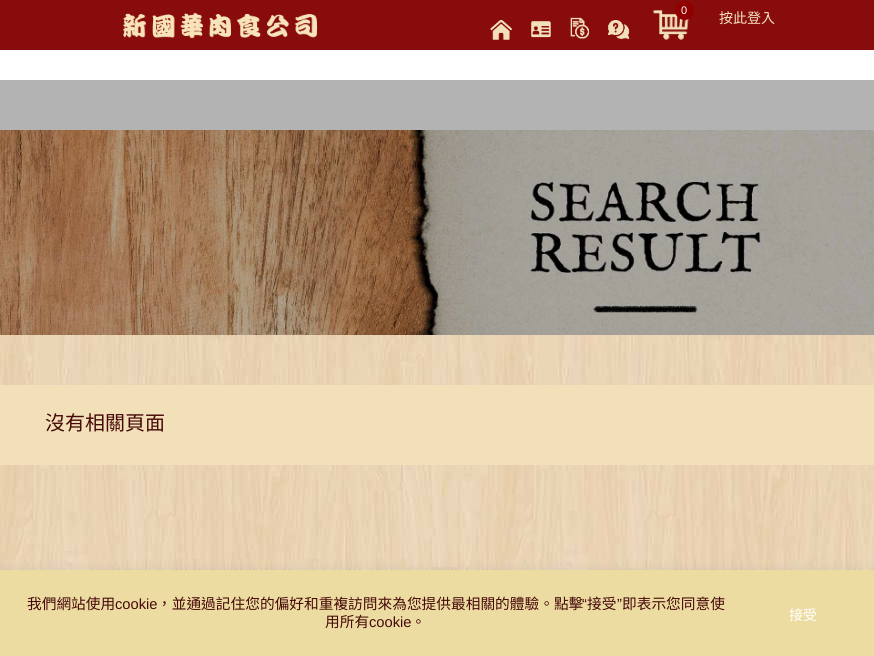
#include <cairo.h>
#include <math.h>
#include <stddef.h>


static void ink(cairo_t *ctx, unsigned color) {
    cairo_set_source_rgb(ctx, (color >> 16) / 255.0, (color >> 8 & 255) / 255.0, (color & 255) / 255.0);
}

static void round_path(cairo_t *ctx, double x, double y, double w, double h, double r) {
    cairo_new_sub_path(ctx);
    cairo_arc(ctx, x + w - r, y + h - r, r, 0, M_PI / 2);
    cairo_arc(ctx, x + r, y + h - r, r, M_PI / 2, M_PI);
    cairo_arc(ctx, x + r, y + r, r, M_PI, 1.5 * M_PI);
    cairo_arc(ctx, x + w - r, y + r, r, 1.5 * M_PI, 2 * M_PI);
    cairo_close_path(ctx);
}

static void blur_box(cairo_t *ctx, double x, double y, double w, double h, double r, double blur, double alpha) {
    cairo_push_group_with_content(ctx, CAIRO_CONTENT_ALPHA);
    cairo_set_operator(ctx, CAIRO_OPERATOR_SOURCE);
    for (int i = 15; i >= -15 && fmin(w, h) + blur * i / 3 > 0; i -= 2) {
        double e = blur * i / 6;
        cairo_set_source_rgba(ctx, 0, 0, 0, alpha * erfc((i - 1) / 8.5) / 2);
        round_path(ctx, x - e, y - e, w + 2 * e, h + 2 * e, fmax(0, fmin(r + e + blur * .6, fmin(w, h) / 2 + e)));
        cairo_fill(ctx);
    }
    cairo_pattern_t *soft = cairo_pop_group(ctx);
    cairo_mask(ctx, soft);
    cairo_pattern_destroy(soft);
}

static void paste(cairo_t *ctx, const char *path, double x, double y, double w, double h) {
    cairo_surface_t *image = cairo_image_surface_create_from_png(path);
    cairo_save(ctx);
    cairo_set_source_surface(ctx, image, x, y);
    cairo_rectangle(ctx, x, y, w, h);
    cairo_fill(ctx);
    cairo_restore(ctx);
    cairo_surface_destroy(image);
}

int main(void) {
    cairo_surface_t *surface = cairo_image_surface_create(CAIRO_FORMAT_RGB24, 874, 656);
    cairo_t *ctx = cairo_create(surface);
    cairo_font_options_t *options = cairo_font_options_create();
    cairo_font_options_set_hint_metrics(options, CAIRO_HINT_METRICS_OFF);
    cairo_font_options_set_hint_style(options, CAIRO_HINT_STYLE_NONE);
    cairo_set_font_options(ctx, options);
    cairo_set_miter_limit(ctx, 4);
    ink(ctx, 0xFFFFFF);
    cairo_paint(ctx);
    ink(ctx, 0xB3B3B3);
    cairo_rectangle(ctx, 0, 80, 874, 50);
    cairo_fill(ctx);
    ink(ctx, 0x880C0C);
    cairo_rectangle(ctx, 0, 0, 874, 50);
    cairo_fill(ctx);
    paste(ctx, "media/1.png", 123, 12, 195, 27);
    paste(ctx, "media/2.png", 490, 19, 22, 21);
    paste(ctx, "media/3.png", 531, 21, 20, 17);
    paste(ctx, "media/4.png", 570, 17, 20, 22);
    paste(ctx, "media/5.png", 607, 20, 23, 19);
    paste(ctx, "media/6.png", 652, 10, 37, 30);
    ink(ctx, 0x900000);
    cairo_arc(ctx, 684.5, 10.5, 9.5, 0, 2 * M_PI);
    cairo_fill(ctx);
    cairo_select_font_face(ctx, "Liberation Sans", CAIRO_FONT_SLANT_NORMAL, CAIRO_FONT_WEIGHT_NORMAL);
    cairo_set_font_size(ctx, 11);
    ink(ctx, 0xFFFFFF);
    cairo_move_to(ctx, 681, 14);
    cairo_show_text(ctx, "0");
    cairo_select_font_face(ctx, "Noto Sans CJK TC", CAIRO_FONT_SLANT_NORMAL, CAIRO_FONT_WEIGHT_NORMAL);
    cairo_set_font_size(ctx, 14);
    ink(ctx, 0xF4E4C0);
    cairo_move_to(ctx, 719, 23);
    cairo_show_text(ctx, "按此登入");
    paste(ctx, "media/7.png", 0, 130, 874, 205);
    paste(ctx, "media/8.png", 0, 335, 874, 235);
    ink(ctx, 0xF2E0B8);
    cairo_rectangle(ctx, 0, 385, 874, 80);
    cairo_fill(ctx);
    cairo_set_font_size(ctx, 20);
    ink(ctx, 0x460909);
    cairo_move_to(ctx, 45, 430);
    cairo_show_text(ctx, "沒有相關頁面");
    ink(ctx, 0xACABAB);
    blur_box(ctx, 0, 569, 874, 86, 0, 5, 0.3);
    ink(ctx, 0xEDDCA1);
    cairo_rectangle(ctx, 0, 570, 874, 86);
    cairo_fill(ctx);
    cairo_set_font_size(ctx, 14.7);
    ink(ctx, 0x460909);
    cairo_move_to(ctx, 27, 609);
    cairo_show_text(ctx, "我們網站使用");
    cairo_select_font_face(ctx, "Liberation Sans", CAIRO_FONT_SLANT_NORMAL, CAIRO_FONT_WEIGHT_NORMAL);
    cairo_move_to(ctx, 115, 609);
    cairo_show_text(ctx, "cookie");
    cairo_select_font_face(ctx, "Noto Sans CJK TC", CAIRO_FONT_SLANT_NORMAL, CAIRO_FONT_WEIGHT_NORMAL);
    cairo_move_to(ctx, 157, 609);
    cairo_show_text(ctx, "，並通過記住您的偏好和重複訪問來為您提供最相關的體驗。點擊");
    cairo_select_font_face(ctx, "Liberation Sans", CAIRO_FONT_SLANT_NORMAL, CAIRO_FONT_WEIGHT_NORMAL);
    cairo_move_to(ctx, 582, 609);
    cairo_show_text(ctx, "“");
    cairo_select_font_face(ctx, "Noto Sans CJK TC", CAIRO_FONT_SLANT_NORMAL, CAIRO_FONT_WEIGHT_NORMAL);
    cairo_move_to(ctx, 587, 609);
    cairo_show_text(ctx, "接受");
    cairo_select_font_face(ctx, "Liberation Sans", CAIRO_FONT_SLANT_NORMAL, CAIRO_FONT_WEIGHT_NORMAL);
    cairo_move_to(ctx, 617, 609);
    cairo_show_text(ctx, "”");
    cairo_select_font_face(ctx, "Noto Sans CJK TC", CAIRO_FONT_SLANT_NORMAL, CAIRO_FONT_WEIGHT_NORMAL);
    cairo_move_to(ctx, 622, 609);
    cairo_show_text(ctx, "即表示您同意使");
    cairo_move_to(ctx, 325, 627);
    cairo_show_text(ctx, "用所有");
    cairo_select_font_face(ctx, "Liberation Sans", CAIRO_FONT_SLANT_NORMAL, CAIRO_FONT_WEIGHT_NORMAL);
    cairo_move_to(ctx, 369, 627);
    cairo_show_text(ctx, "cookie");
    cairo_select_font_face(ctx, "Noto Sans CJK TC", CAIRO_FONT_SLANT_NORMAL, CAIRO_FONT_WEIGHT_NORMAL);
    cairo_move_to(ctx, 411, 627);
    cairo_show_text(ctx, "。");
    cairo_set_font_size(ctx, 14);
    ink(ctx, 0xFFFFFF);
    cairo_move_to(ctx, 789, 620);
    cairo_show_text(ctx, "接受");
    cairo_surface_write_to_png(surface, "image.png");
    cairo_font_options_destroy(options);
    cairo_destroy(ctx);
    cairo_surface_destroy(surface);
    return 0;
}
